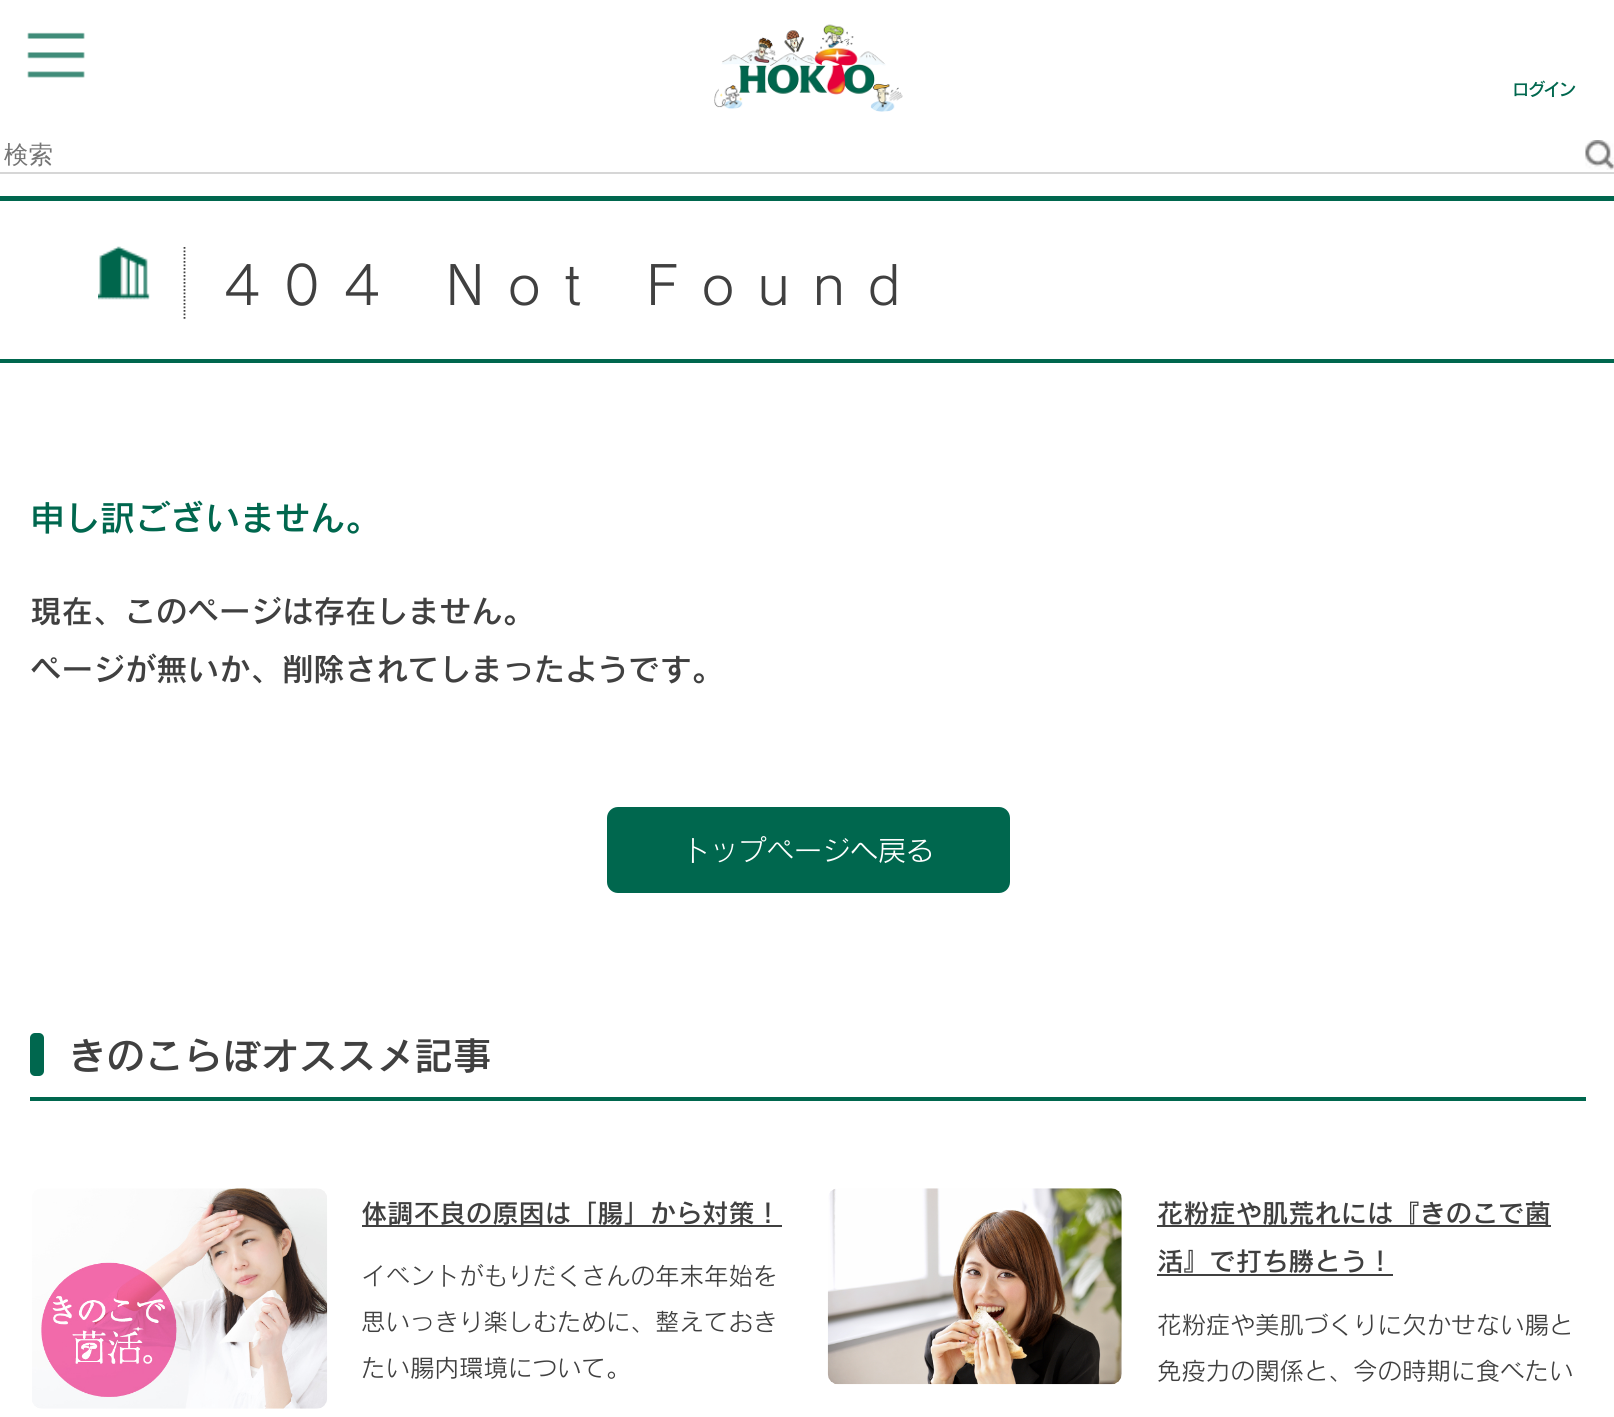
#include <cairo.h>
#include <math.h>
#include <stddef.h>

typedef struct { double x, y; const char *s; } line_t;

static void ink(cairo_t *ctx, unsigned color) {
    cairo_set_source_rgb(ctx, (color >> 16) / 255.0, (color >> 8 & 255) / 255.0, (color & 255) / 255.0);
}

static void write_spaced(cairo_t *ctx, double x, double y, const char *s, double letter, double word) {
    cairo_move_to(ctx, x, y);
    while (*s) {
        char ch[5] = {0};
        int n = 0;
        do ch[n++] = *s++; while ((*s & 0xC0) == 0x80);
        cairo_show_text(ctx, ch);
        cairo_rel_move_to(ctx, letter + word * (*ch == ' '), 0);
    }
}

static void round_path(cairo_t *ctx, double x, double y, double w, double h, double r) {
    cairo_new_sub_path(ctx);
    cairo_arc(ctx, x + w - r, y + h - r, r, 0, M_PI / 2);
    cairo_arc(ctx, x + r, y + h - r, r, M_PI / 2, M_PI);
    cairo_arc(ctx, x + r, y + r, r, M_PI, 1.5 * M_PI);
    cairo_arc(ctx, x + w - r, y + r, r, 1.5 * M_PI, 2 * M_PI);
    cairo_close_path(ctx);
}

static void paste(cairo_t *ctx, const char *path, double x, double y, double w, double h) {
    cairo_surface_t *image = cairo_image_surface_create_from_png(path);
    cairo_save(ctx);
    cairo_set_source_surface(ctx, image, x, y);
    cairo_rectangle(ctx, x, y, w, h);
    cairo_fill(ctx);
    cairo_restore(ctx);
    cairo_surface_destroy(image);
}

int main(void) {
    cairo_surface_t *surface = cairo_image_surface_create(CAIRO_FORMAT_RGB24, 1614, 1417);
    cairo_t *ctx = cairo_create(surface);
    cairo_font_options_t *options = cairo_font_options_create();
    cairo_font_options_set_hint_metrics(options, CAIRO_HINT_METRICS_OFF);
    cairo_font_options_set_hint_style(options, CAIRO_HINT_STYLE_NONE);
    cairo_set_font_options(ctx, options);
    cairo_set_miter_limit(ctx, 4);
    ink(ctx, 0xFFFFFF);
    cairo_paint(ctx);
    ink(ctx, 0x00674E);
    cairo_rectangle(ctx, 0, 196, 1614, 5);
    cairo_fill(ctx);
    paste(ctx, "media/1.png", 27, 32, 58, 46);
    paste(ctx, "media/2.png", 714, 24, 189, 88);
    cairo_select_font_face(ctx, "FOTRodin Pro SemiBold", CAIRO_FONT_SLANT_NORMAL, CAIRO_FONT_WEIGHT_NORMAL);
    cairo_set_font_size(ctx, 17.5);
    write_spaced(ctx, 1512, 96, "ログイン", -2, 0);
    ink(ctx, 0xD6D6D6);
    cairo_rectangle(ctx, 0, 172, 1614, 2);
    cairo_fill(ctx);
    cairo_select_font_face(ctx, "WenQuanYi Zen Hei Medium", CAIRO_FONT_SLANT_NORMAL, CAIRO_FONT_WEIGHT_NORMAL);
    cairo_set_font_size(ctx, 24.5);
    ink(ctx, 0x757575);
    cairo_move_to(ctx, 4, 163);
    cairo_show_text(ctx, "検索");
    paste(ctx, "media/3.png", 1585, 140, 29, 30);
    ink(ctx, 0x00674E);
    cairo_rectangle(ctx, 0, 359, 1614, 4);
    cairo_fill(ctx);
    paste(ctx, "media/4.png", 98, 246, 52, 54);
    cairo_new_path(ctx);
    cairo_move_to(ctx, 184.5, 247);
    cairo_line_to(ctx, 184.5, 320);
    ink(ctx, 0x404040);
    cairo_set_line_width(ctx, 1.8);
    cairo_set_dash(ctx, (double[]){1.75, 1.75}, 2, 0);
    cairo_stroke(ctx);
    cairo_select_font_face(ctx, "FOTRodin Pro Medium", CAIRO_FONT_SLANT_NORMAL, CAIRO_FONT_WEIGHT_NORMAL);
    cairo_set_font_size(ctx, 52.5);
    write_spaced(ctx, 224, 305, "404 Not Found", 23.6, 0);
    cairo_select_font_face(ctx, "FOTRodin Pro SemiBold", CAIRO_FONT_SLANT_NORMAL, CAIRO_FONT_WEIGHT_NORMAL);
    cairo_set_font_size(ctx, 35);
    ink(ctx, 0x00674E);
    cairo_move_to(ctx, 30, 531);
    cairo_show_text(ctx, "申し訳ございません。");
    cairo_set_font_size(ctx, 31.5);
    ink(ctx, 0x404040);
    cairo_move_to(ctx, 30, 623);
    cairo_show_text(ctx, "現在、このページは存在しません。");
    cairo_move_to(ctx, 30, 681);
    cairo_show_text(ctx, "ページが無いか、削除されてしまったようです。");
    ink(ctx, 0x00674E);
    round_path(ctx, 607, 807, 403, 86, 11);
    cairo_fill(ctx);
    cairo_select_font_face(ctx, "FOTRodin Pro Medium", CAIRO_FONT_SLANT_NORMAL, CAIRO_FONT_WEIGHT_NORMAL);
    cairo_set_font_size(ctx, 28);
    ink(ctx, 0xFFFFFF);
    cairo_move_to(ctx, 682, 861);
    cairo_show_text(ctx, "トップページへ戻る");
    ink(ctx, 0x00674E);
    cairo_rectangle(ctx, 30, 1097, 1556, 4);
    cairo_fill(ctx);
    round_path(ctx, 30, 1033, 14, 43, 5);
    cairo_fill(ctx);
    cairo_select_font_face(ctx, "FOTRodin Pro SemiBold", CAIRO_FONT_SLANT_NORMAL, CAIRO_FONT_WEIGHT_NORMAL);
    cairo_set_font_size(ctx, 38.5);
    ink(ctx, 0x404040);
    cairo_move_to(ctx, 68, 1070);
    cairo_show_text(ctx, "きのこらぼオススメ記事");
    paste(ctx, "media/5.png", 32, 1188, 296, 221);
    cairo_set_font_size(ctx, 26.25);
    cairo_move_to(ctx, 361, 1223);
    cairo_show_text(ctx, "体調不良の原因は「腸」から対策！");
    cairo_rectangle(ctx, 362, 1225, 420, 2);
    cairo_fill(ctx);
    cairo_select_font_face(ctx, "FOTRodin Pro Medium", CAIRO_FONT_SLANT_NORMAL, CAIRO_FONT_WEIGHT_NORMAL);
    cairo_set_font_size(ctx, 24.5);
    {
        static const line_t items[] = {
            {361, 1285, "イベントがもりだくさんの年末年始を"},
            {361, 1331, "思いっきり楽しむために、整えておき"},
            {361, 1377, "たい腸内環境について。"},
        };
        for (size_t i = 0; i < sizeof items / sizeof *items; i++) {
            cairo_move_to(ctx, items[i].x, items[i].y);
            cairo_show_text(ctx, items[i].s);
        }
    }
    paste(ctx, "media/6.png", 827, 1188, 295, 197);
    cairo_rectangle(ctx, 1157, 1225, 394, 2);
    cairo_fill(ctx);
    cairo_select_font_face(ctx, "FOTRodin Pro SemiBold", CAIRO_FONT_SLANT_NORMAL, CAIRO_FONT_WEIGHT_NORMAL);
    cairo_set_font_size(ctx, 26.25);
    cairo_move_to(ctx, 1157, 1223);
    cairo_show_text(ctx, "花粉症や肌荒れには『きのこで菌");
    cairo_move_to(ctx, 1157, 1271);
    cairo_show_text(ctx, "活』で打ち勝とう！");
    cairo_rectangle(ctx, 1157, 1274, 236, 2);
    cairo_fill(ctx);
    cairo_select_font_face(ctx, "FOTRodin Pro Medium", CAIRO_FONT_SLANT_NORMAL, CAIRO_FONT_WEIGHT_NORMAL);
    cairo_set_font_size(ctx, 24.5);
    cairo_move_to(ctx, 1157, 1334);
    cairo_show_text(ctx, "花粉症や美肌づくりに欠かせない腸と");
    cairo_move_to(ctx, 1157, 1380);
    cairo_show_text(ctx, "免疫力の関係と、今の時期に食べたい");
    cairo_surface_write_to_png(surface, "image.png");
    cairo_font_options_destroy(options);
    cairo_destroy(ctx);
    cairo_surface_destroy(surface);
    return 0;
}
